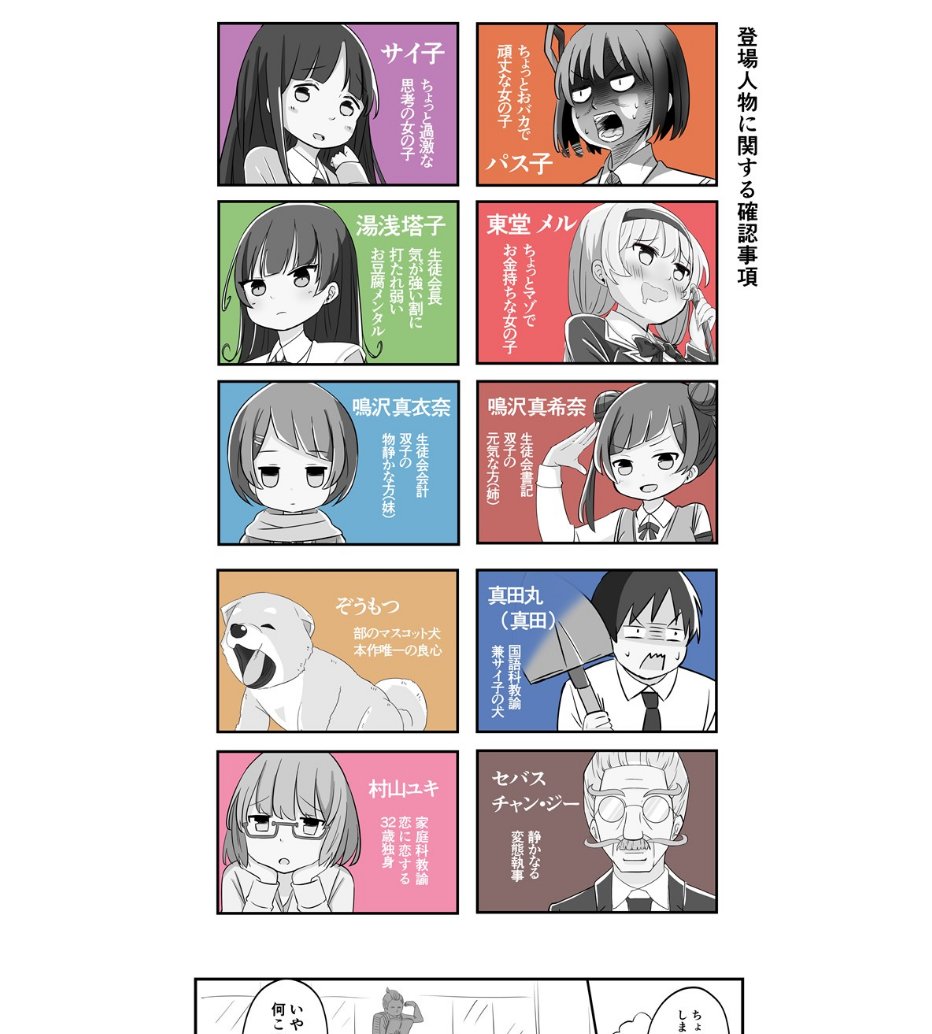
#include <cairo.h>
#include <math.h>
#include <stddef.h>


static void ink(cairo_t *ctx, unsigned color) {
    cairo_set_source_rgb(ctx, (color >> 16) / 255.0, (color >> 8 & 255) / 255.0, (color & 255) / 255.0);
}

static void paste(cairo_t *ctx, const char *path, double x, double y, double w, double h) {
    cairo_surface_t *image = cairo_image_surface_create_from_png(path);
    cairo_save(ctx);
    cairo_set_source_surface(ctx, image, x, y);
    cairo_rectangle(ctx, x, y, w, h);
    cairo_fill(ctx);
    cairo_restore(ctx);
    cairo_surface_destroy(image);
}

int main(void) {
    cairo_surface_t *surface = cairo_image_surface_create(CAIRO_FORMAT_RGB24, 932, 1034);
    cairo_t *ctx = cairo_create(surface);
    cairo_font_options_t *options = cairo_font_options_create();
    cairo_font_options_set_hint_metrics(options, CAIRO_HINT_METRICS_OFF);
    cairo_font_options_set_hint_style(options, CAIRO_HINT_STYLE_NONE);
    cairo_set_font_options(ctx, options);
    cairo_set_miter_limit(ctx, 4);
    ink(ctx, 0xFFFFFF);
    cairo_paint(ctx);
    paste(ctx, "media/1.png", 214, 19, 548, 901);
    paste(ctx, "media/2.png", 191, 976, 554, 58);
    cairo_surface_write_to_png(surface, "image.png");
    cairo_font_options_destroy(options);
    cairo_destroy(ctx);
    cairo_surface_destroy(surface);
    return 0;
}
